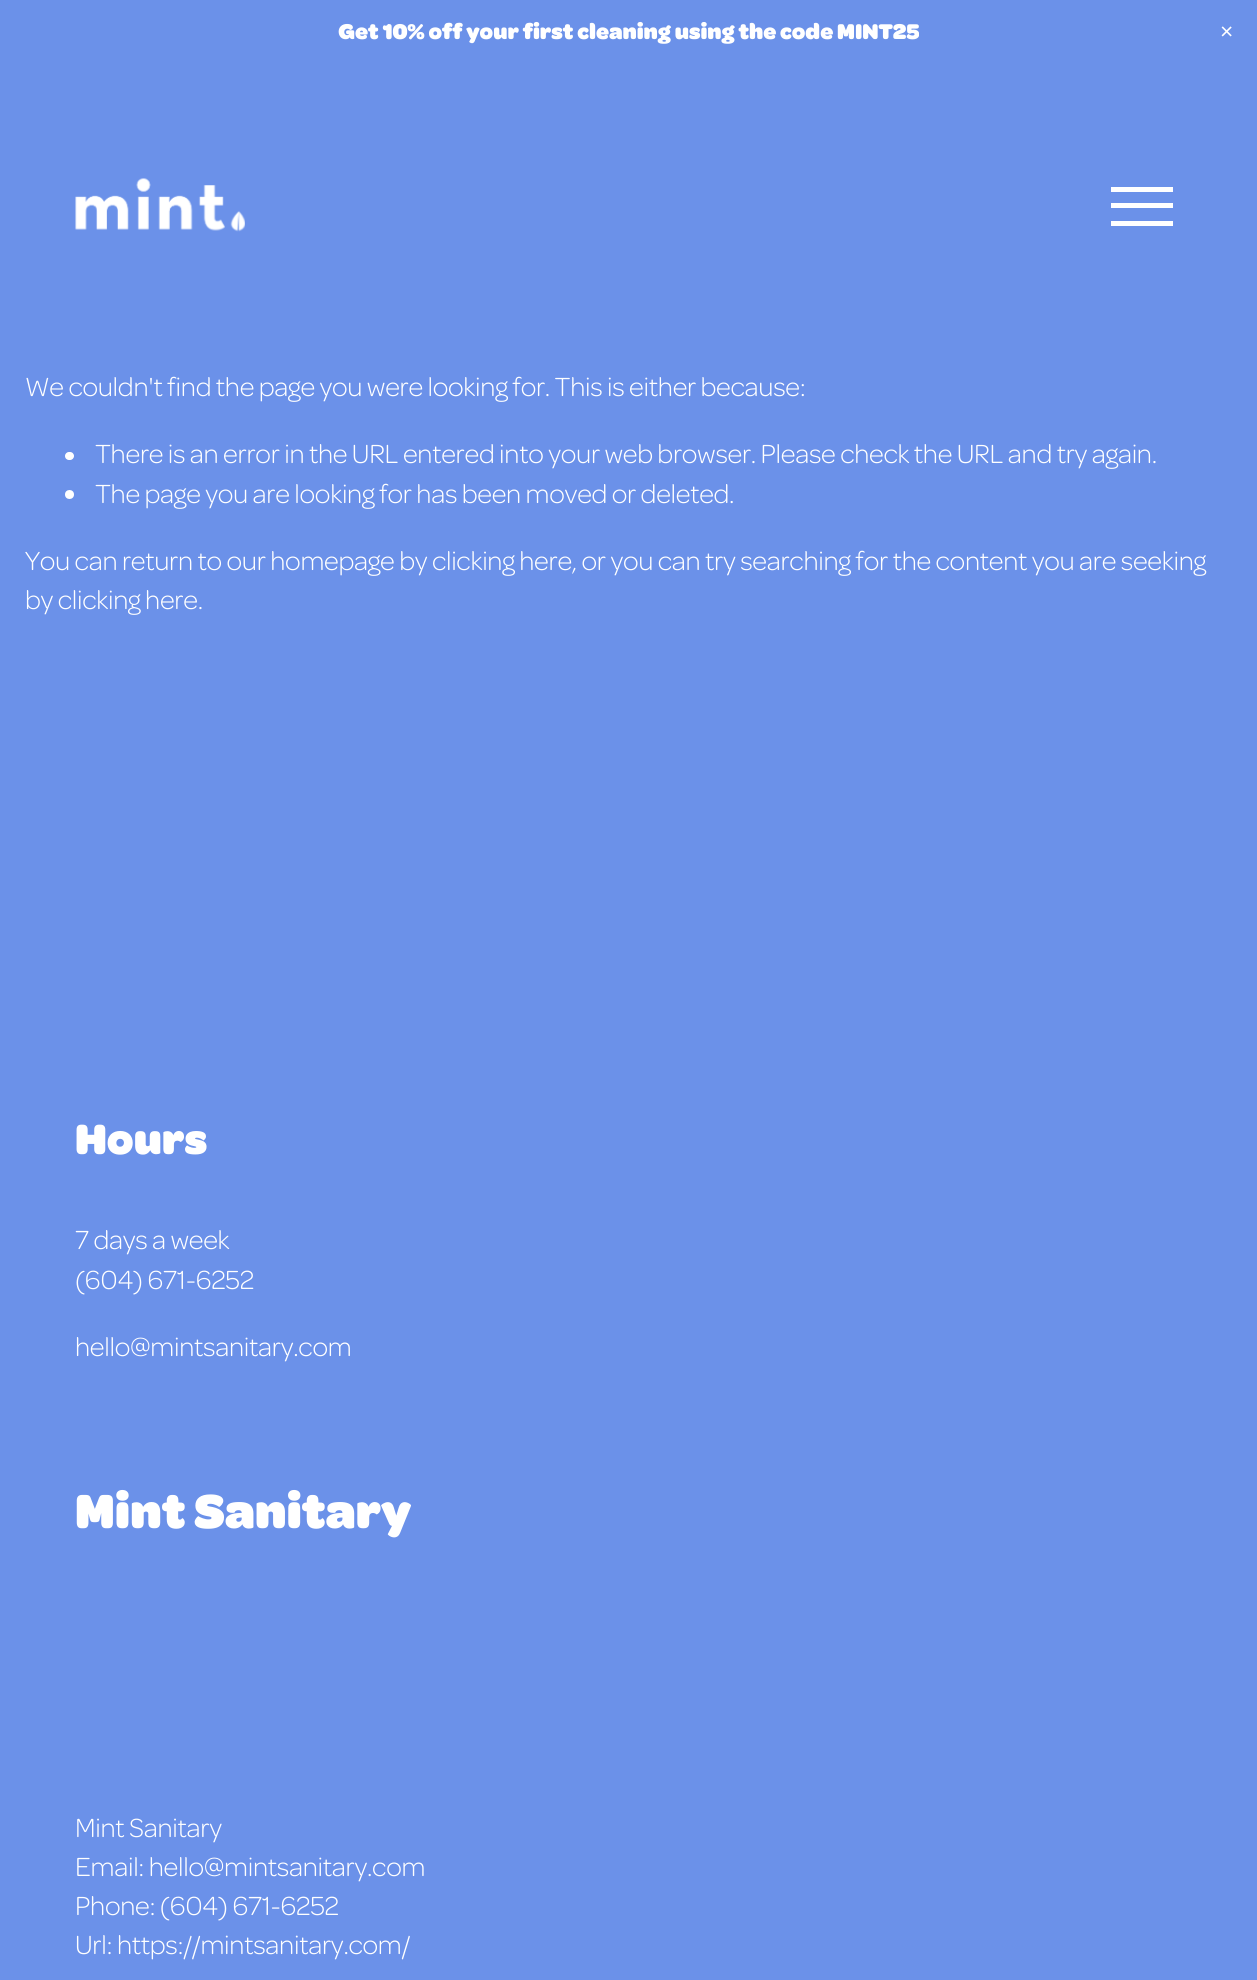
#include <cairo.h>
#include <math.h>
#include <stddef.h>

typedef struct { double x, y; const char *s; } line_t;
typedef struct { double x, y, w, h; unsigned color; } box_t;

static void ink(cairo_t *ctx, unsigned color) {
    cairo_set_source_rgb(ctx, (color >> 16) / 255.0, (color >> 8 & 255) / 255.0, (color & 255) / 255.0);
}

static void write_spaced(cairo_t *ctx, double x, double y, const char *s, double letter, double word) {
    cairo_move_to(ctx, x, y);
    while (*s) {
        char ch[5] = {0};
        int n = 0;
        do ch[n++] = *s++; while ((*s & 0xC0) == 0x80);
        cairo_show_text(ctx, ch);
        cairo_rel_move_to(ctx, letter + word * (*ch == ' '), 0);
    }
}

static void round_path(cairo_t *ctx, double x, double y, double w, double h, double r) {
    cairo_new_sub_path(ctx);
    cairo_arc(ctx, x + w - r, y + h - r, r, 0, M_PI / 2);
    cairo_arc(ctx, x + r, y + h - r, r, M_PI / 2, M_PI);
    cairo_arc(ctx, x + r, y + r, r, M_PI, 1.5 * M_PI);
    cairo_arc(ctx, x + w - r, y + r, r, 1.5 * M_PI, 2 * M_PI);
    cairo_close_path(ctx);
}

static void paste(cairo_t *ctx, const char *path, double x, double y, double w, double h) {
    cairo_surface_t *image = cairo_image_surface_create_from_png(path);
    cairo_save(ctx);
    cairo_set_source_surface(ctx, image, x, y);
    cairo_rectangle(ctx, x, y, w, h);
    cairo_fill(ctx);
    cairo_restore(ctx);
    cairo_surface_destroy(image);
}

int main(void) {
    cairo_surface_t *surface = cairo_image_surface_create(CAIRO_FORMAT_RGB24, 1257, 1980);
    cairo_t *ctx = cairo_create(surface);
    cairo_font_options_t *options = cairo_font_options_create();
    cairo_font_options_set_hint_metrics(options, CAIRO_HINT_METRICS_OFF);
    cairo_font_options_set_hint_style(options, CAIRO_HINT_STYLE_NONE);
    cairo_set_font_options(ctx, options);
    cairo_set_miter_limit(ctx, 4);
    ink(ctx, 0x6B91E9);
    cairo_paint(ctx);
    cairo_select_font_face(ctx, "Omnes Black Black", CAIRO_FONT_SLANT_NORMAL, CAIRO_FONT_WEIGHT_NORMAL);
    cairo_set_font_size(ctx, 22.75);
    ink(ctx, 0xFFFFFF);
    cairo_move_to(ctx, 338, 39);
    cairo_show_text(ctx, "Get 10% off your first cleaning using the code MINT25");
    cairo_select_font_face(ctx, "Liberation Sans", CAIRO_FONT_SLANT_NORMAL, CAIRO_FONT_WEIGHT_NORMAL);
    cairo_move_to(ctx, 1220, 39);
    cairo_show_text(ctx, "×");
    paste(ctx, "media/1.png", 75, 178, 170, 54);
    {
        static const box_t items[] = {
            {1111, 187, 62, 5, 0xFFFFFF},
            {1111, 203, 62, 5, 0xFFFFFF},
            {1111, 221, 62, 5, 0xFFFFFF},
        };
        for (size_t i = 0; i < sizeof items / sizeof *items; i++) {
            ink(ctx, items[i].color);
            cairo_rectangle(ctx, items[i].x, items[i].y, items[i].w, items[i].h);
            cairo_fill(ctx);
        }
    }
    cairo_select_font_face(ctx, "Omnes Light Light", CAIRO_FONT_SLANT_NORMAL, CAIRO_FONT_WEIGHT_NORMAL);
    cairo_set_font_size(ctx, 28);
    write_spaced(ctx, 25, 396, "We couldn't find the page you were looking for. This is either because:", -0.28, 0);
    round_path(ctx, 65, 452, 9, 8, 4);
    cairo_fill(ctx);
    write_spaced(ctx, 95, 463, "There is an error in the URL entered into your web browser. Please check the URL and try again.", -0.28, 0);
    cairo_new_path(ctx);
    cairo_arc(ctx, 69.5, 494.5, 4.5, 0, 2 * M_PI);
    cairo_fill(ctx);
    {
        static const line_t items[] = {
            {95, 503, "The page you are looking for has been moved or deleted."},
            {25, 570, "You can return to our homepage by clicking here, or you can try searching for the content you are seeking"},
            {25, 609, "by clicking here."},
        };
        for (size_t i = 0; i < sizeof items / sizeof *items; i++) {
            write_spaced(ctx, items[i].x, items[i].y, items[i].s, -0.28, 0);
        }
    }
    cairo_select_font_face(ctx, "Omnes Black Black", CAIRO_FONT_SLANT_NORMAL, CAIRO_FONT_WEIGHT_NORMAL);
    cairo_set_font_size(ctx, 45);
    cairo_move_to(ctx, 75, 1154);
    cairo_show_text(ctx, "Hours");
    cairo_select_font_face(ctx, "Omnes Light Light", CAIRO_FONT_SLANT_NORMAL, CAIRO_FONT_WEIGHT_NORMAL);
    cairo_set_font_size(ctx, 28);
    {
        static const line_t items[] = {
            {75, 1249, "7 days a week"},
            {75, 1289, "(604) 671-6252"},
            {75, 1356, "hello@mintsanitary.com"},
        };
        for (size_t i = 0; i < sizeof items / sizeof *items; i++) {
            write_spaced(ctx, items[i].x, items[i].y, items[i].s, -0.28, 0);
        }
    }
    cairo_select_font_face(ctx, "Omnes Black Black", CAIRO_FONT_SLANT_NORMAL, CAIRO_FONT_WEIGHT_NORMAL);
    cairo_set_font_size(ctx, 50.75);
    cairo_move_to(ctx, 75, 1528);
    cairo_show_text(ctx, "Mint Sanitary");
    cairo_select_font_face(ctx, "Omnes Light Light", CAIRO_FONT_SLANT_NORMAL, CAIRO_FONT_WEIGHT_NORMAL);
    cairo_set_font_size(ctx, 28);
    {
        static const line_t items[] = {
            {75, 1837, "Mint Sanitary"},
            {75, 1876, "Email: hello@mintsanitary.com"},
            {75, 1915, "Phone: (604) 671-6252"},
            {75, 1954, "Url: https://mintsanitary.com/"},
        };
        for (size_t i = 0; i < sizeof items / sizeof *items; i++) {
            write_spaced(ctx, items[i].x, items[i].y, items[i].s, -0.28, 0);
        }
    }
    cairo_surface_write_to_png(surface, "image.png");
    cairo_font_options_destroy(options);
    cairo_destroy(ctx);
    cairo_surface_destroy(surface);
    return 0;
}
